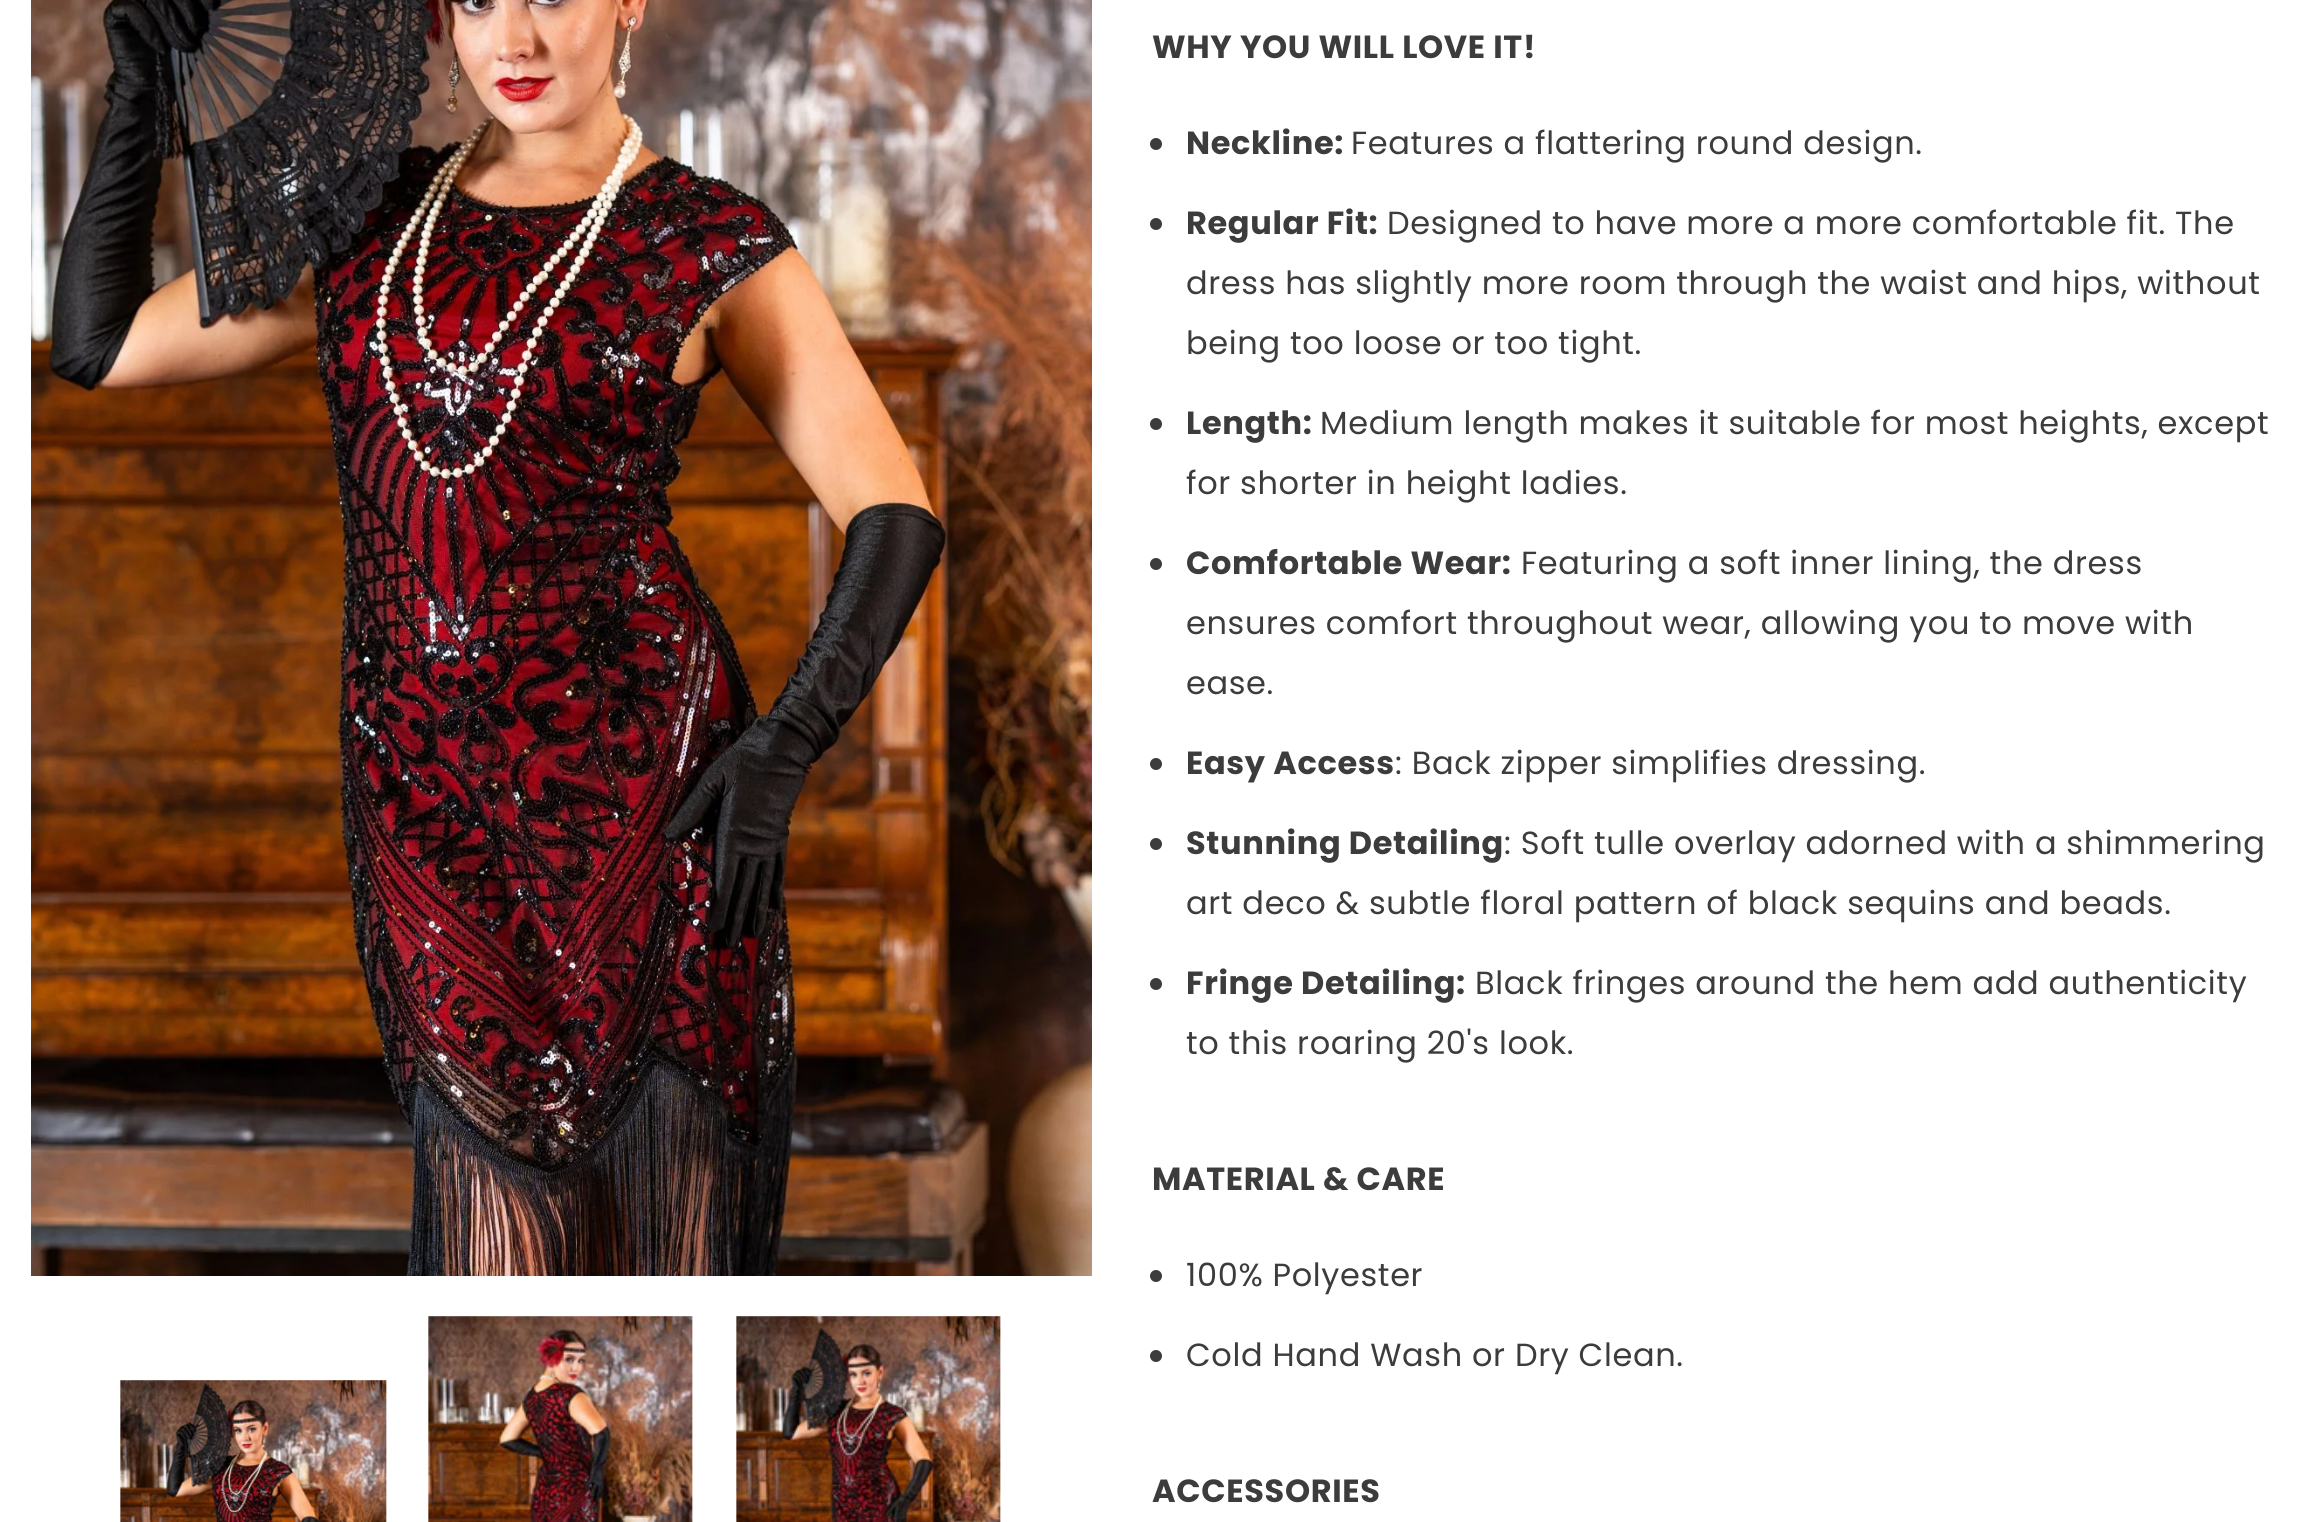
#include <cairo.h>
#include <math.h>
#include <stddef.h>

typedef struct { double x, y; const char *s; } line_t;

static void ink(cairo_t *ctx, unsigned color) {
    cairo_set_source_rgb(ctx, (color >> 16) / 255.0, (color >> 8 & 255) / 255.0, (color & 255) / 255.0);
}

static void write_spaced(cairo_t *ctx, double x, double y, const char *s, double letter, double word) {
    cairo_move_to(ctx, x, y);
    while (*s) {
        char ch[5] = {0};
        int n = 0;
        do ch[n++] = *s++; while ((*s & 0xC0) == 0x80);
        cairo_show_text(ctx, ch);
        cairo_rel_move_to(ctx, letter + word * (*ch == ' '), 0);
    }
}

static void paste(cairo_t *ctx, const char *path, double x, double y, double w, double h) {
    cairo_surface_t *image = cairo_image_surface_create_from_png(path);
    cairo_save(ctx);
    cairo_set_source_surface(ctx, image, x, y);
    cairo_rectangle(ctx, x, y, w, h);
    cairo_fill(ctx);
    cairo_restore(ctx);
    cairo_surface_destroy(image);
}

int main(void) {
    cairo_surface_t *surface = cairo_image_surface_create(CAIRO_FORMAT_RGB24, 2304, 1522);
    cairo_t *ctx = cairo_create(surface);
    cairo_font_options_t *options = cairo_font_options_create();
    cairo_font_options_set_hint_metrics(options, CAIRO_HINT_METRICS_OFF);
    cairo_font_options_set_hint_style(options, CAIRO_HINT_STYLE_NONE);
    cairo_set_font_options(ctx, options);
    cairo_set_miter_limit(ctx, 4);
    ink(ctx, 0xFFFFFF);
    cairo_paint(ctx);
    paste(ctx, "media/1.png", 31, 0, 1061, 1276);
    paste(ctx, "media/2.png", 120, 1380, 267, 142);
    paste(ctx, "media/3.png", 428, 1316, 265, 206);
    paste(ctx, "media/4.png", 736, 1316, 265, 206);
    cairo_select_font_face(ctx, "Poppins", CAIRO_FONT_SLANT_NORMAL, CAIRO_FONT_WEIGHT_BOLD);
    cairo_set_font_size(ctx, 32);
    ink(ctx, 0x3C3C3C);
    write_spaced(ctx, 1152, 58, "WHY YOU WILL LOVE IT!", 0.65, 0);
    cairo_new_path(ctx);
    cairo_arc(ctx, 1156, 144, 6, 0, 2 * M_PI);
    cairo_fill(ctx);
    write_spaced(ctx, 1186, 154, "Neckline:", 0.65, 0);
    cairo_select_font_face(ctx, "Poppins", CAIRO_FONT_SLANT_NORMAL, CAIRO_FONT_WEIGHT_NORMAL);
    write_spaced(ctx, 1351, 154, "Features a flattering round design.", 0.65, 0);
    cairo_new_path(ctx);
    cairo_arc(ctx, 1156, 224, 6, 0, 2 * M_PI);
    cairo_fill(ctx);
    cairo_select_font_face(ctx, "Poppins", CAIRO_FONT_SLANT_NORMAL, CAIRO_FONT_WEIGHT_BOLD);
    write_spaced(ctx, 1186, 234, "Regular Fit:", 0.65, 0);
    cairo_select_font_face(ctx, "Poppins", CAIRO_FONT_SLANT_NORMAL, CAIRO_FONT_WEIGHT_NORMAL);
    {
        static const line_t items[] = {
            {1387, 234, "Designed to have more a more comfortable fit. The"},
            {1186, 294, "dress has slightly more room through the waist and hips, without"},
            {1186, 354, "being too loose or too tight."},
        };
        for (size_t i = 0; i < sizeof items / sizeof *items; i++) {
            write_spaced(ctx, items[i].x, items[i].y, items[i].s, 0.65, 0);
        }
    }
    cairo_new_path(ctx);
    cairo_arc(ctx, 1156, 424, 6, 0, 2 * M_PI);
    cairo_fill(ctx);
    cairo_select_font_face(ctx, "Poppins", CAIRO_FONT_SLANT_NORMAL, CAIRO_FONT_WEIGHT_BOLD);
    write_spaced(ctx, 1186, 434, "Length:", 0.65, 0);
    cairo_select_font_face(ctx, "Poppins", CAIRO_FONT_SLANT_NORMAL, CAIRO_FONT_WEIGHT_NORMAL);
    write_spaced(ctx, 1320, 434, "Medium length makes it suitable for most heights, except", 0.65, 0);
    write_spaced(ctx, 1186, 494, "for shorter in height ladies.", 0.65, 0);
    cairo_new_path(ctx);
    cairo_arc(ctx, 1156, 564, 6, 0, 2 * M_PI);
    cairo_fill(ctx);
    cairo_select_font_face(ctx, "Poppins", CAIRO_FONT_SLANT_NORMAL, CAIRO_FONT_WEIGHT_BOLD);
    write_spaced(ctx, 1186, 574, "Comfortable Wear:", 0.65, 0);
    cairo_select_font_face(ctx, "Poppins", CAIRO_FONT_SLANT_NORMAL, CAIRO_FONT_WEIGHT_NORMAL);
    {
        static const line_t items[] = {
            {1521, 574, "Featuring a soft inner lining, the dress"},
            {1186, 634, "ensures comfort throughout wear, allowing you to move with"},
            {1186, 694, "ease."},
        };
        for (size_t i = 0; i < sizeof items / sizeof *items; i++) {
            write_spaced(ctx, items[i].x, items[i].y, items[i].s, 0.65, 0);
        }
    }
    cairo_new_path(ctx);
    cairo_arc(ctx, 1156, 764, 6, 0, 2 * M_PI);
    cairo_fill(ctx);
    cairo_select_font_face(ctx, "Poppins", CAIRO_FONT_SLANT_NORMAL, CAIRO_FONT_WEIGHT_BOLD);
    write_spaced(ctx, 1186, 774, "Easy Access", 0.65, 0);
    cairo_select_font_face(ctx, "Poppins", CAIRO_FONT_SLANT_NORMAL, CAIRO_FONT_WEIGHT_NORMAL);
    write_spaced(ctx, 1395, 774, ": Back zipper simplifies dressing.", 0.65, 0);
    cairo_new_path(ctx);
    cairo_arc(ctx, 1156, 844, 6, 0, 2 * M_PI);
    cairo_fill(ctx);
    cairo_select_font_face(ctx, "Poppins", CAIRO_FONT_SLANT_NORMAL, CAIRO_FONT_WEIGHT_BOLD);
    write_spaced(ctx, 1186, 854, "Stunning Detailing", 0.65, 0);
    cairo_select_font_face(ctx, "Poppins", CAIRO_FONT_SLANT_NORMAL, CAIRO_FONT_WEIGHT_NORMAL);
    write_spaced(ctx, 1504, 854, ": Soft tulle overlay adorned with a shimmering", 0.65, 0);
    write_spaced(ctx, 1186, 914, "art deco & subtle floral pattern of black sequins and beads.", 0.65, 0);
    cairo_new_path(ctx);
    cairo_arc(ctx, 1156, 984, 6, 0, 2 * M_PI);
    cairo_fill(ctx);
    cairo_select_font_face(ctx, "Poppins", CAIRO_FONT_SLANT_NORMAL, CAIRO_FONT_WEIGHT_BOLD);
    write_spaced(ctx, 1186, 994, "Fringe Detailing:", 0.65, 0);
    cairo_select_font_face(ctx, "Poppins", CAIRO_FONT_SLANT_NORMAL, CAIRO_FONT_WEIGHT_NORMAL);
    write_spaced(ctx, 1475, 994, "Black fringes around the hem add authenticity", 0.65, 0);
    write_spaced(ctx, 1186, 1054, "to this roaring 20's look.", 0.65, 0);
    cairo_select_font_face(ctx, "Poppins", CAIRO_FONT_SLANT_NORMAL, CAIRO_FONT_WEIGHT_BOLD);
    write_spaced(ctx, 1152, 1190, "MATERIAL & CARE", 0.65, 0);
    cairo_new_path(ctx);
    cairo_arc(ctx, 1156, 1276, 6, 0, 2 * M_PI);
    cairo_fill(ctx);
    cairo_select_font_face(ctx, "Poppins", CAIRO_FONT_SLANT_NORMAL, CAIRO_FONT_WEIGHT_NORMAL);
    write_spaced(ctx, 1186, 1286, "100% Polyester", 0.65, 0);
    cairo_new_path(ctx);
    cairo_arc(ctx, 1156, 1356, 6, 0, 2 * M_PI);
    cairo_fill(ctx);
    write_spaced(ctx, 1186, 1366, "Cold Hand Wash or Dry Clean.", 0.65, 0);
    cairo_select_font_face(ctx, "Poppins", CAIRO_FONT_SLANT_NORMAL, CAIRO_FONT_WEIGHT_BOLD);
    write_spaced(ctx, 1152, 1502, "ACCESSORIES", 0.65, 0);
    cairo_surface_write_to_png(surface, "image.png");
    cairo_font_options_destroy(options);
    cairo_destroy(ctx);
    cairo_surface_destroy(surface);
    return 0;
}
